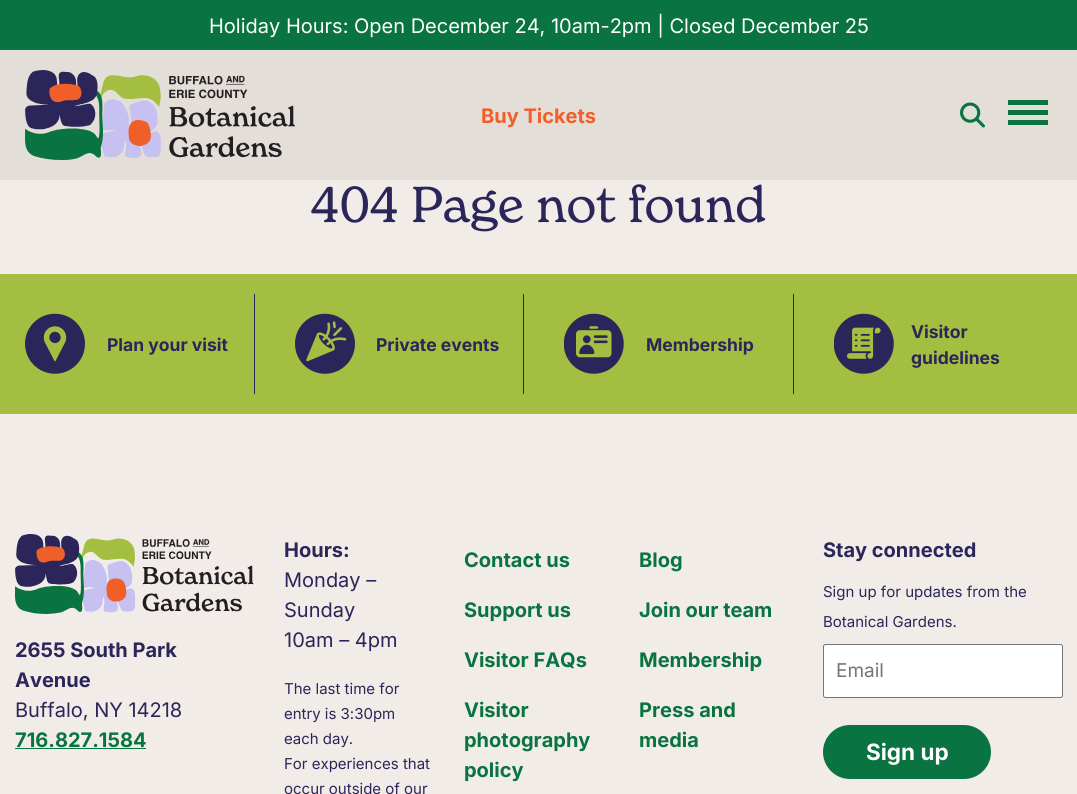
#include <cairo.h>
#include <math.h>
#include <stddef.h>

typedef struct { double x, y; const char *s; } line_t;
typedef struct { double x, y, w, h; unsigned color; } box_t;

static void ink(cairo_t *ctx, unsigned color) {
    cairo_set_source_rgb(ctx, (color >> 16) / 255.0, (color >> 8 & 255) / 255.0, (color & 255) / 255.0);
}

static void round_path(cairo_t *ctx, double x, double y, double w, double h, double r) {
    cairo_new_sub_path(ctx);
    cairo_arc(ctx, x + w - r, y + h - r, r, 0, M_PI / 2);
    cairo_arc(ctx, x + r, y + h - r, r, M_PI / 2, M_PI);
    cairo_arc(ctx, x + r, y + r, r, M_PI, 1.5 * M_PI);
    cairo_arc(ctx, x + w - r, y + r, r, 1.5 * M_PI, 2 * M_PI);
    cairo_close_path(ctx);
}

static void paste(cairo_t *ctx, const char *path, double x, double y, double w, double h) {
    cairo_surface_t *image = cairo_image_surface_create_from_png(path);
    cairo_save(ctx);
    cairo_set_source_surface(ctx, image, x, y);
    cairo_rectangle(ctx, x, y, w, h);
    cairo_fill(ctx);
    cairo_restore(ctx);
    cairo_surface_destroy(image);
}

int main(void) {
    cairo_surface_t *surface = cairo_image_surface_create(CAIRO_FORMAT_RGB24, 1077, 794);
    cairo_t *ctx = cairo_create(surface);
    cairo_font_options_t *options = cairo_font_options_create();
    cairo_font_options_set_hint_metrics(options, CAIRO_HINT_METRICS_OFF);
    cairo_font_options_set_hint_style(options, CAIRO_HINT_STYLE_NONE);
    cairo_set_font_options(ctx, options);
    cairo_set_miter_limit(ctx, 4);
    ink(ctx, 0xF1ECE8);
    cairo_paint(ctx);
    ink(ctx, 0x097341);
    cairo_rectangle(ctx, 0, 0, 1077, 50);
    cairo_fill(ctx);
    cairo_select_font_face(ctx, "Inter", CAIRO_FONT_SLANT_NORMAL, CAIRO_FONT_WEIGHT_NORMAL);
    cairo_set_font_size(ctx, 20);
    ink(ctx, 0xFFFFFF);
    cairo_move_to(ctx, 209, 33);
    cairo_show_text(ctx, "Holiday Hours: Open December 24, 10am-2pm | Closed December 25");
    ink(ctx, 0xE4DED9);
    cairo_rectangle(ctx, 0, 50, 1077, 130);
    cairo_fill(ctx);
    paste(ctx, "media/1.png", 25, 70, 270, 90);
    cairo_select_font_face(ctx, "Inter", CAIRO_FONT_SLANT_NORMAL, CAIRO_FONT_WEIGHT_BOLD);
    ink(ctx, 0xF25E29);
    cairo_move_to(ctx, 481, 123);
    cairo_show_text(ctx, "Buy Tickets");
    paste(ctx, "media/2.png", 960, 102, 25, 26);
    {
        static const box_t items[] = {
            {1008, 100, 40, 5, 0x097341},
            {1008, 110, 40, 5, 0x097341},
            {1008, 120, 40, 5, 0x097341},
        };
        for (size_t i = 0; i < sizeof items / sizeof *items; i++) {
            ink(ctx, items[i].color);
            cairo_rectangle(ctx, items[i].x, items[i].y, items[i].w, items[i].h);
            cairo_fill(ctx);
        }
    }
    cairo_select_font_face(ctx, "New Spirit", CAIRO_FONT_SLANT_NORMAL, CAIRO_FONT_WEIGHT_NORMAL);
    cairo_set_font_size(ctx, 49.6);
    ink(ctx, 0x2B2659);
    cairo_move_to(ctx, 311, 222);
    cairo_show_text(ctx, "404 Page not found");
    ink(ctx, 0xA3BE41);
    cairo_rectangle(ctx, 0, 274, 1077, 140);
    cairo_fill(ctx);
    ink(ctx, 0x2B2659);
    cairo_rectangle(ctx, 254, 294, 1, 100);
    cairo_fill(ctx);
    paste(ctx, "media/3.png", 25, 313, 60, 61);
    cairo_select_font_face(ctx, "Inter", CAIRO_FONT_SLANT_NORMAL, CAIRO_FONT_WEIGHT_BOLD);
    cairo_set_font_size(ctx, 17.5);
    cairo_move_to(ctx, 107, 351);
    cairo_show_text(ctx, "Plan your visit");
    cairo_rectangle(ctx, 523, 294, 1, 100);
    cairo_fill(ctx);
    paste(ctx, "media/4.png", 295, 313, 60, 61);
    cairo_move_to(ctx, 376, 351);
    cairo_show_text(ctx, "Private events");
    cairo_rectangle(ctx, 793, 294, 1, 100);
    cairo_fill(ctx);
    paste(ctx, "media/5.png", 564, 313, 60, 61);
    cairo_move_to(ctx, 646, 351);
    cairo_show_text(ctx, "Membership");
    paste(ctx, "media/6.png", 834, 313, 60, 61);
    cairo_move_to(ctx, 911, 338);
    cairo_show_text(ctx, "Visitor");
    cairo_move_to(ctx, 911, 364);
    cairo_show_text(ctx, "guidelines");
    paste(ctx, "media/7.png", 15, 534, 239, 80);
    cairo_set_font_size(ctx, 20);
    cairo_move_to(ctx, 15, 657);
    cairo_show_text(ctx, "2655 South Park");
    cairo_move_to(ctx, 15, 687);
    cairo_show_text(ctx, "Avenue");
    cairo_select_font_face(ctx, "Inter", CAIRO_FONT_SLANT_NORMAL, CAIRO_FONT_WEIGHT_NORMAL);
    cairo_move_to(ctx, 15, 717);
    cairo_show_text(ctx, "Buffalo, NY 14218");
    cairo_select_font_face(ctx, "Inter", CAIRO_FONT_SLANT_NORMAL, CAIRO_FONT_WEIGHT_BOLD);
    ink(ctx, 0x097341);
    cairo_move_to(ctx, 15, 747);
    cairo_show_text(ctx, "716.827.1584");
    cairo_rectangle(ctx, 15, 748, 131, 1);
    cairo_fill(ctx);
    ink(ctx, 0x2B2659);
    cairo_move_to(ctx, 284, 557);
    cairo_show_text(ctx, "Hours:");
    cairo_select_font_face(ctx, "Inter", CAIRO_FONT_SLANT_NORMAL, CAIRO_FONT_WEIGHT_NORMAL);
    {
        static const line_t items[] = {
            {284, 587, "Monday –"},
            {284, 617, "Sunday"},
            {284, 647, "10am – 4pm"},
        };
        for (size_t i = 0; i < sizeof items / sizeof *items; i++) {
            cairo_move_to(ctx, items[i].x, items[i].y);
            cairo_show_text(ctx, items[i].s);
        }
    }
    cairo_set_font_size(ctx, 15);
    {
        static const line_t items[] = {
            {284, 694, "The last time for"},
            {284, 719, "entry is 3:30pm"},
            {284, 744, "each day."},
            {284, 769, "For experiences that"},
            {284, 794, "occur outside of our"},
        };
        for (size_t i = 0; i < sizeof items / sizeof *items; i++) {
            cairo_move_to(ctx, items[i].x, items[i].y);
            cairo_show_text(ctx, items[i].s);
        }
    }
    cairo_select_font_face(ctx, "Inter", CAIRO_FONT_SLANT_NORMAL, CAIRO_FONT_WEIGHT_BOLD);
    cairo_set_font_size(ctx, 20);
    ink(ctx, 0x097341);
    {
        static const line_t items[] = {
            {464, 567, "Contact us"},
            {639, 567, "Blog"},
            {464, 617, "Support us"},
            {639, 617, "Join our team"},
            {464, 667, "Visitor FAQs"},
            {639, 667, "Membership"},
            {464, 717, "Visitor"},
            {464, 747, "photography"},
            {464, 777, "policy"},
            {639, 717, "Press and"},
            {639, 747, "media"},
        };
        for (size_t i = 0; i < sizeof items / sizeof *items; i++) {
            cairo_move_to(ctx, items[i].x, items[i].y);
            cairo_show_text(ctx, items[i].s);
        }
    }
    ink(ctx, 0x2B2659);
    cairo_move_to(ctx, 823, 557);
    cairo_show_text(ctx, "Stay connected");
    cairo_select_font_face(ctx, "Inter", CAIRO_FONT_SLANT_NORMAL, CAIRO_FONT_WEIGHT_NORMAL);
    cairo_set_font_size(ctx, 15);
    cairo_move_to(ctx, 823, 597);
    cairo_show_text(ctx, "Sign up for updates from the");
    cairo_move_to(ctx, 823, 627);
    cairo_show_text(ctx, "Botanical Gardens.");
    ink(ctx, 0xFFFFFF);
    round_path(ctx, 823.5, 644.5, 239, 53, 2);
    cairo_fill_preserve(ctx);
    ink(ctx, 0x767676);
    cairo_set_line_width(ctx, 1);
    cairo_stroke(ctx);
    cairo_set_font_size(ctx, 19);
    ink(ctx, 0x757575);
    cairo_move_to(ctx, 836, 677);
    cairo_show_text(ctx, "Email");
    ink(ctx, 0x097341);
    round_path(ctx, 824.5, 726.5, 165, 51, 25.5);
    cairo_fill_preserve(ctx);
    cairo_set_line_width(ctx, 3);
    cairo_stroke(ctx);
    cairo_select_font_face(ctx, "Inter", CAIRO_FONT_SLANT_NORMAL, CAIRO_FONT_WEIGHT_BOLD);
    cairo_set_font_size(ctx, 22.5);
    ink(ctx, 0xFFFFFF);
    cairo_move_to(ctx, 866, 760);
    cairo_show_text(ctx, "Sign up");
    cairo_surface_write_to_png(surface, "image.png");
    cairo_font_options_destroy(options);
    cairo_destroy(ctx);
    cairo_surface_destroy(surface);
    return 0;
}
